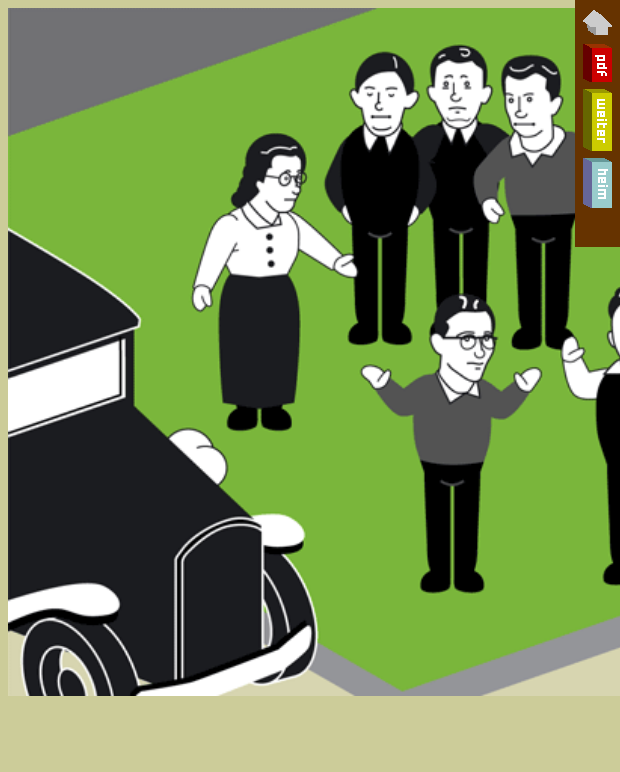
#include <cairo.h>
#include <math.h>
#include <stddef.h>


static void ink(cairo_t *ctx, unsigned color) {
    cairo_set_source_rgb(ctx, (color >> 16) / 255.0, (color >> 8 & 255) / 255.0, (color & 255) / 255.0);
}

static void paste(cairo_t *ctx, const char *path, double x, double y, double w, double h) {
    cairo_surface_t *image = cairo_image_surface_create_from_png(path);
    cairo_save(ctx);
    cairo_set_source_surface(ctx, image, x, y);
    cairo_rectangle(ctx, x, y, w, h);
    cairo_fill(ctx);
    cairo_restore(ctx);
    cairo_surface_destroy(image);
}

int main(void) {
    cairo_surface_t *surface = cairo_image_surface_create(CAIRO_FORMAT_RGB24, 620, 772);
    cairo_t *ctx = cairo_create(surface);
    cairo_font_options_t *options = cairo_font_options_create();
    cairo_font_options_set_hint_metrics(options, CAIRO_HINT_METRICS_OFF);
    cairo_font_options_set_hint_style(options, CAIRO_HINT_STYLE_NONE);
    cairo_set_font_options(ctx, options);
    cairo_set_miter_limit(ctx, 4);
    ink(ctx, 0xCCCC99);
    cairo_paint(ctx);
    paste(ctx, "media/1.png", 8, 8, 612, 688);
    ink(ctx, 0x663300);
    cairo_rectangle(ctx, 575, 0, 45, 247);
    cairo_fill(ctx);
    paste(ctx, "media/2.png", 583, 10, 29, 25);
    paste(ctx, "media/3.png", 583, 44, 29, 38);
    paste(ctx, "media/4.png", 583, 89, 29, 62);
    paste(ctx, "media/5.png", 583, 158, 29, 50);
    cairo_surface_write_to_png(surface, "image.png");
    cairo_font_options_destroy(options);
    cairo_destroy(ctx);
    cairo_surface_destroy(surface);
    return 0;
}
